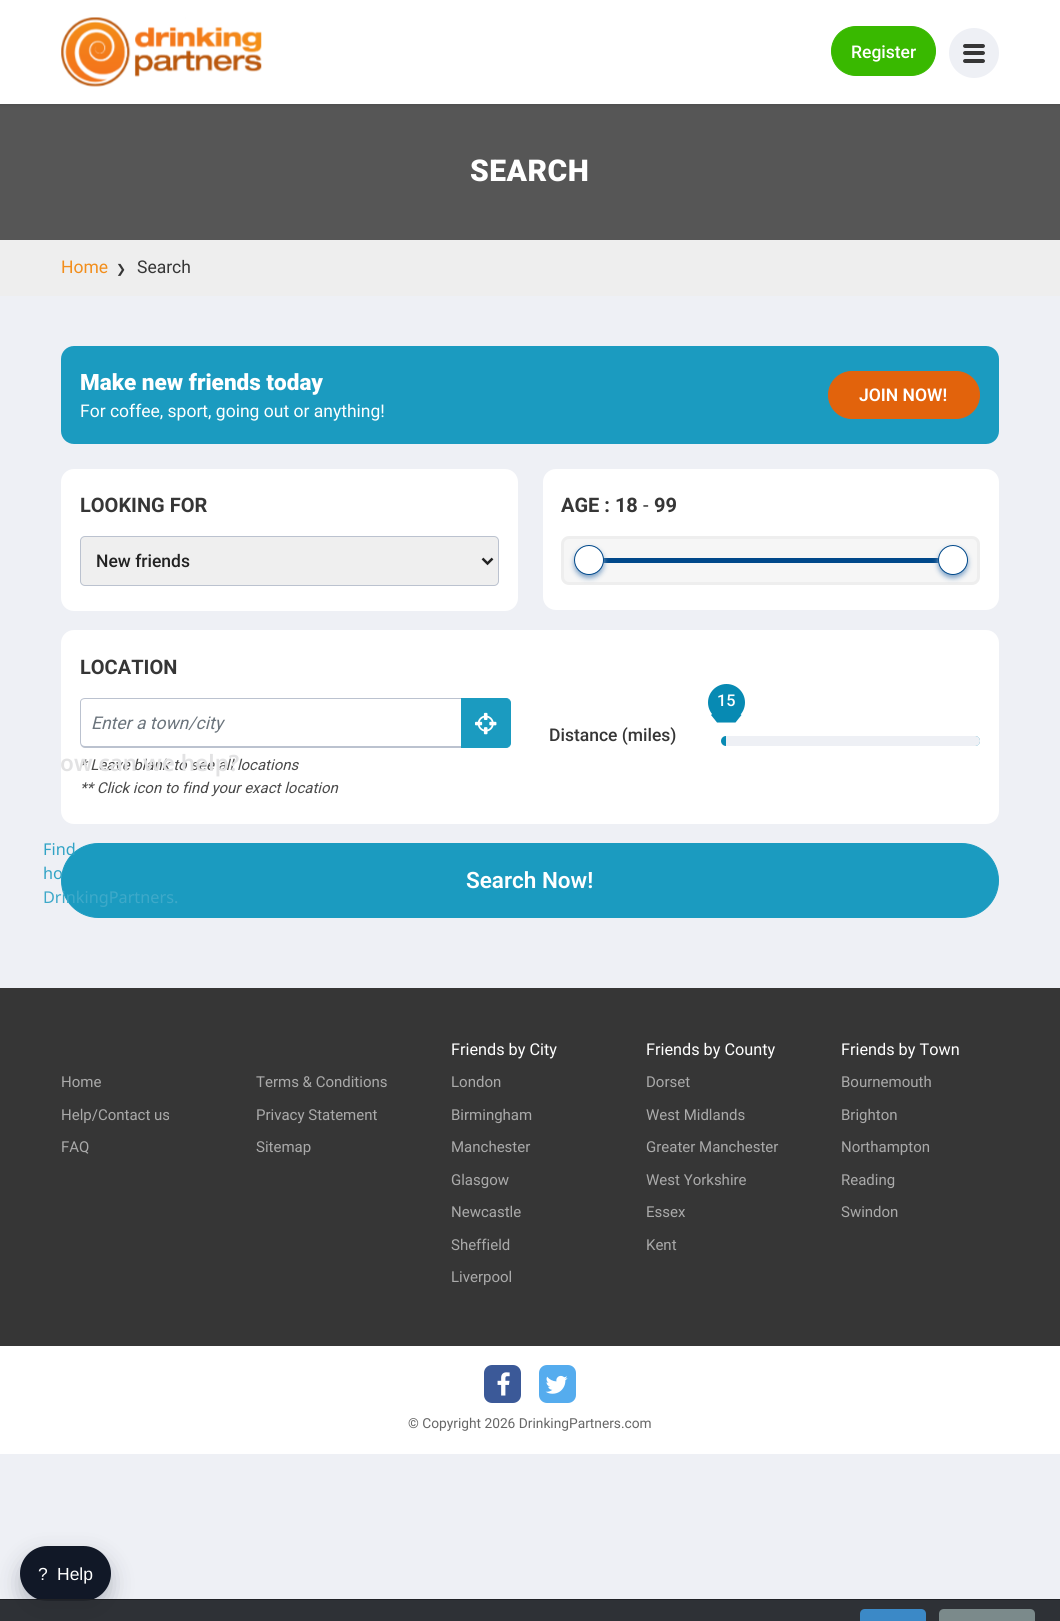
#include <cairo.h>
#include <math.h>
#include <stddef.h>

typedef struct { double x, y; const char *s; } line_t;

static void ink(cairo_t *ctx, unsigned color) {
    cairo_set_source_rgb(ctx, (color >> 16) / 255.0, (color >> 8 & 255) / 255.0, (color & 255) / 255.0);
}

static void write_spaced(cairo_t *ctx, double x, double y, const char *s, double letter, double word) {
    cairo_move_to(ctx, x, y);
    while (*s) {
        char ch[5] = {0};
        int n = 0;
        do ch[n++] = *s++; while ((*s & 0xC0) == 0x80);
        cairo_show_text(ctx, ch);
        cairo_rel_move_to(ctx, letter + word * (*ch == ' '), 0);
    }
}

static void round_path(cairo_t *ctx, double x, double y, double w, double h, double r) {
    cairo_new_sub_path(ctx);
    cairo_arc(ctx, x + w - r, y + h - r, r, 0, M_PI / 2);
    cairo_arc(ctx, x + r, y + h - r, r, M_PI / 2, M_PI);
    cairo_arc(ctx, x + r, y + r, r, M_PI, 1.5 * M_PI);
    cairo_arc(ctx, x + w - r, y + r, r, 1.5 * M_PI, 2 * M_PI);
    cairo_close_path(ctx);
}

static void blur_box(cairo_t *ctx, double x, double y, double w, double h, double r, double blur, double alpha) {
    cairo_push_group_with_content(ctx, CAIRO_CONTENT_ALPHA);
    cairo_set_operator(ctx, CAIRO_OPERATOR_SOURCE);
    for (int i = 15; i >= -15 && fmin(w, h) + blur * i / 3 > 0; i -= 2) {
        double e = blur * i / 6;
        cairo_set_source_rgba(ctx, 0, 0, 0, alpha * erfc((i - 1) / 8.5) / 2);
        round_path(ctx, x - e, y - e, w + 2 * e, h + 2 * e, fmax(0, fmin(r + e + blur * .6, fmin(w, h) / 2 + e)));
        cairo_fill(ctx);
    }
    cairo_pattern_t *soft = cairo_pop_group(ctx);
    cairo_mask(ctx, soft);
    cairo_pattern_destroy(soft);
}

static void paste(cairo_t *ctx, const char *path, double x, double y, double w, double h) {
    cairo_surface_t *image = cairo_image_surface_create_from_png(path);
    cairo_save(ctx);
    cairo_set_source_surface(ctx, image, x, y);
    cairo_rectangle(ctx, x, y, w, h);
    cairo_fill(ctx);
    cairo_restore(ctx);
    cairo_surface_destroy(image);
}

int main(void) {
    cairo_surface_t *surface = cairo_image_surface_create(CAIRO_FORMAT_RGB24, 1060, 1621);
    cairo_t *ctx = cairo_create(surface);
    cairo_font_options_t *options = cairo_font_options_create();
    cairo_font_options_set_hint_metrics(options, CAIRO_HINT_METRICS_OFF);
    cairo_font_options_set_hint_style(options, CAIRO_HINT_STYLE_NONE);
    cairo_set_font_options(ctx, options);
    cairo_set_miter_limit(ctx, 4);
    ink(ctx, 0xEEF0F5);
    cairo_paint(ctx);
    ink(ctx, 0x565656);
    cairo_rectangle(ctx, 0, 104, 1060, 136);
    cairo_fill(ctx);
    ink(ctx, 0x000000);
    blur_box(ctx, 0, 1, 1060, 104, 0, 2, 0.12);
    ink(ctx, 0xFFFFFF);
    cairo_rectangle(ctx, 0, 0, 1060, 104);
    cairo_fill(ctx);
    paste(ctx, "media/1.png", 61, 17, 201, 70);
    ink(ctx, 0x39B900);
    round_path(ctx, 831.5, 26.5, 104, 49, 24.5);
    cairo_fill_preserve(ctx);
    cairo_set_line_width(ctx, 1);
    cairo_stroke(ctx);
    cairo_select_font_face(ctx, "Roboto Medium", CAIRO_FONT_SLANT_NORMAL, CAIRO_FONT_WEIGHT_NORMAL);
    cairo_set_font_size(ctx, 17.5);
    ink(ctx, 0xFFFFFF);
    cairo_move_to(ctx, 851, 58);
    cairo_show_text(ctx, "Register");
    ink(ctx, 0xEEF0F5);
    cairo_new_path(ctx);
    cairo_arc(ctx, 974, 53, 25, 0, 2 * M_PI);
    cairo_fill(ctx);
    ink(ctx, 0x363636);
    cairo_new_path(ctx);
    cairo_move_to(ctx, 965, 44);
    cairo_line_to(ctx, 974, 44);
    cairo_line_to(ctx, 974, 48);
    cairo_line_to(ctx, 965, 48);
    cairo_curve_to(ctx, 964, 48, 963, 47, 963, 46);
    cairo_curve_to(ctx, 963, 45, 964, 44, 965, 44);
    cairo_close_path(ctx);
    cairo_fill(ctx);
    cairo_new_path(ctx);
    cairo_move_to(ctx, 974, 44);
    cairo_line_to(ctx, 983, 44);
    cairo_curve_to(ctx, 984, 44, 985, 45, 985, 46);
    cairo_curve_to(ctx, 985, 47, 984, 48, 983, 48);
    cairo_line_to(ctx, 974, 48);
    cairo_close_path(ctx);
    cairo_fill(ctx);
    cairo_new_path(ctx);
    cairo_move_to(ctx, 965, 51);
    cairo_line_to(ctx, 974, 51);
    cairo_line_to(ctx, 974, 55);
    cairo_line_to(ctx, 965, 55);
    cairo_curve_to(ctx, 964, 55, 963, 54, 963, 53);
    cairo_curve_to(ctx, 963, 52, 964, 51, 965, 51);
    cairo_close_path(ctx);
    cairo_fill(ctx);
    cairo_new_path(ctx);
    cairo_move_to(ctx, 974, 51);
    cairo_line_to(ctx, 983, 51);
    cairo_curve_to(ctx, 984, 51, 985, 52, 985, 53);
    cairo_curve_to(ctx, 985, 54, 984, 55, 983, 55);
    cairo_line_to(ctx, 974, 55);
    cairo_close_path(ctx);
    cairo_fill(ctx);
    cairo_new_path(ctx);
    cairo_move_to(ctx, 965, 59);
    cairo_line_to(ctx, 974, 59);
    cairo_line_to(ctx, 974, 63);
    cairo_line_to(ctx, 965, 63);
    cairo_curve_to(ctx, 964, 63, 963, 62, 963, 61);
    cairo_curve_to(ctx, 963, 60, 964, 59, 965, 59);
    cairo_close_path(ctx);
    cairo_fill(ctx);
    cairo_new_path(ctx);
    cairo_move_to(ctx, 974, 59);
    cairo_line_to(ctx, 983, 59);
    cairo_curve_to(ctx, 984, 59, 985, 60, 985, 61);
    cairo_curve_to(ctx, 985, 62, 984, 63, 983, 63);
    cairo_line_to(ctx, 974, 63);
    cairo_close_path(ctx);
    cairo_fill(ctx);
    cairo_select_font_face(ctx, "Roboto Black", CAIRO_FONT_SLANT_NORMAL, CAIRO_FONT_WEIGHT_NORMAL);
    cairo_set_font_size(ctx, 30);
    ink(ctx, 0xFFFFFF);
    write_spaced(ctx, 470, 181, "SEARCH", 0.5, 0);
    ink(ctx, 0xEEEEEE);
    cairo_rectangle(ctx, 0, 240, 1060, 56);
    cairo_fill(ctx);
    cairo_select_font_face(ctx, "Roboto", CAIRO_FONT_SLANT_NORMAL, CAIRO_FONT_WEIGHT_NORMAL);
    cairo_set_font_size(ctx, 17.5);
    ink(ctx, 0xF28E1C);
    cairo_move_to(ctx, 61, 273);
    cairo_show_text(ctx, "Home");
    cairo_select_font_face(ctx, "DejaVu Sans", CAIRO_FONT_SLANT_NORMAL, CAIRO_FONT_WEIGHT_NORMAL);
    cairo_set_font_size(ctx, 12);
    ink(ctx, 0x363636);
    cairo_move_to(ctx, 116, 273);
    cairo_show_text(ctx, "❯");
    cairo_select_font_face(ctx, "Roboto", CAIRO_FONT_SLANT_NORMAL, CAIRO_FONT_WEIGHT_NORMAL);
    cairo_set_font_size(ctx, 17.5);
    cairo_move_to(ctx, 137, 273);
    cairo_show_text(ctx, "Search");
    ink(ctx, 0x1B9BC0);
    round_path(ctx, 61, 346, 938, 98, 13);
    cairo_fill(ctx);
    cairo_select_font_face(ctx, "Roboto Black", CAIRO_FONT_SLANT_NORMAL, CAIRO_FONT_WEIGHT_NORMAL);
    cairo_set_font_size(ctx, 22.5);
    ink(ctx, 0xFFFFFF);
    cairo_move_to(ctx, 80, 390);
    cairo_show_text(ctx, "Make new friends today");
    cairo_select_font_face(ctx, "Roboto", CAIRO_FONT_SLANT_NORMAL, CAIRO_FONT_WEIGHT_NORMAL);
    cairo_set_font_size(ctx, 17.5);
    cairo_move_to(ctx, 80, 417);
    cairo_show_text(ctx, "For coffee, sport, going out or anything!");
    ink(ctx, 0xE2630C);
    round_path(ctx, 828.5, 371.5, 151, 47, 23.5);
    cairo_fill_preserve(ctx);
    cairo_stroke(ctx);
    cairo_select_font_face(ctx, "Roboto SemiBold", CAIRO_FONT_SLANT_NORMAL, CAIRO_FONT_WEIGHT_NORMAL);
    ink(ctx, 0xFFFFFF);
    cairo_move_to(ctx, 859, 401);
    cairo_show_text(ctx, "JOIN NOW!");
    round_path(ctx, 61, 469, 457, 142, 13);
    cairo_fill(ctx);
    cairo_select_font_face(ctx, "Roboto", CAIRO_FONT_SLANT_NORMAL, CAIRO_FONT_WEIGHT_BOLD);
    cairo_set_font_size(ctx, 20);
    ink(ctx, 0x363636);
    cairo_move_to(ctx, 80, 512);
    cairo_show_text(ctx, "LOOKING FOR");
    ink(ctx, 0xEFEFEF);
    round_path(ctx, 80.5, 536.5, 418, 49, 4.5);
    cairo_fill_preserve(ctx);
    ink(ctx, 0xBBC2CF);
    cairo_stroke(ctx);
    cairo_new_path(ctx);
    cairo_move_to(ctx, 482.5, 558.5);
    cairo_line_to(ctx, 487.5, 563.5);
    cairo_line_to(ctx, 492.5, 558.5);
    ink(ctx, 0x222222);
    cairo_set_line_width(ctx, 2.5);
    cairo_stroke(ctx);
    cairo_select_font_face(ctx, "Roboto Medium", CAIRO_FONT_SLANT_NORMAL, CAIRO_FONT_WEIGHT_NORMAL);
    cairo_set_font_size(ctx, 17.5);
    cairo_move_to(ctx, 96, 567);
    cairo_show_text(ctx, "New friends");
    ink(ctx, 0xFFFFFF);
    round_path(ctx, 543, 469, 456, 141, 13);
    cairo_fill(ctx);
    cairo_select_font_face(ctx, "Roboto", CAIRO_FONT_SLANT_NORMAL, CAIRO_FONT_WEIGHT_BOLD);
    cairo_set_font_size(ctx, 20);
    ink(ctx, 0x363636);
    cairo_move_to(ctx, 561, 512);
    cairo_show_text(ctx, "AGE : 18");
    cairo_select_font_face(ctx, "Roboto", CAIRO_FONT_SLANT_NORMAL, CAIRO_FONT_WEIGHT_NORMAL);
    cairo_move_to(ctx, 643, 512);
    cairo_show_text(ctx, "-");
    cairo_select_font_face(ctx, "Roboto", CAIRO_FONT_SLANT_NORMAL, CAIRO_FONT_WEIGHT_BOLD);
    cairo_move_to(ctx, 654, 512);
    cairo_show_text(ctx, "99");
    ink(ctx, 0xF6F6F6);
    round_path(ctx, 562.5, 537.5, 416, 46, 6.5);
    cairo_fill_preserve(ctx);
    ink(ctx, 0xEEEEEE);
    cairo_set_line_width(ctx, 3);
    cairo_stroke(ctx);
    ink(ctx, 0x00488A);
    cairo_rectangle(ctx, 603, 558, 336, 5);
    cairo_fill(ctx);
    ink(ctx, 0x83A5C8);
    blur_box(ctx, 574, 548, 30, 30, 15, 2.5, 1);
    ink(ctx, 0xFFFFFF);
    cairo_arc(ctx, 589, 560, 14.5, 0, 2 * M_PI);
    cairo_fill_preserve(ctx);
    ink(ctx, 0x00488A);
    cairo_set_line_width(ctx, 1);
    cairo_stroke(ctx);
    ink(ctx, 0x83A5C8);
    blur_box(ctx, 938, 548, 30, 30, 15, 2.5, 1);
    ink(ctx, 0xFFFFFF);
    cairo_arc(ctx, 953, 560, 14.5, 0, 2 * M_PI);
    cairo_fill_preserve(ctx);
    ink(ctx, 0x00488A);
    cairo_stroke(ctx);
    ink(ctx, 0xFFFFFF);
    round_path(ctx, 61, 630, 938, 194, 13);
    cairo_fill(ctx);
    ink(ctx, 0x363636);
    cairo_move_to(ctx, 80, 674);
    cairo_show_text(ctx, "LOCATION");
    ink(ctx, 0xBBC2CF);
    cairo_set_fill_rule(ctx, CAIRO_FILL_RULE_EVEN_ODD);
    cairo_new_path(ctx);
    cairo_move_to(ctx, 85, 698);
    cairo_line_to(ctx, 461, 698);
    cairo_line_to(ctx, 461, 748);
    cairo_line_to(ctx, 85, 748);
    cairo_curve_to(ctx, 82, 748, 80, 745, 80, 742);
    cairo_line_to(ctx, 80, 702);
    cairo_curve_to(ctx, 80, 700, 82, 698, 85, 698);
    cairo_close_path(ctx);
    cairo_move_to(ctx, 85, 699);
    cairo_line_to(ctx, 461, 699);
    cairo_line_to(ctx, 461, 746);
    cairo_line_to(ctx, 85, 746);
    cairo_curve_to(ctx, 83, 746, 81, 745, 81, 742);
    cairo_line_to(ctx, 81, 702);
    cairo_curve_to(ctx, 81, 700, 83, 699, 85, 699);
    cairo_close_path(ctx);
    cairo_fill(ctx);
    cairo_select_font_face(ctx, "Roboto", CAIRO_FONT_SLANT_ITALIC, CAIRO_FONT_WEIGHT_NORMAL);
    cairo_set_font_size(ctx, 17.5);
    ink(ctx, 0x6C757D);
    cairo_move_to(ctx, 91, 729);
    cairo_show_text(ctx, "Enter a town/city");
    ink(ctx, 0x1B9BC0);
    cairo_new_path(ctx);
    cairo_move_to(ctx, 461.5, 698.5);
    cairo_line_to(ctx, 506, 698.5);
    cairo_curve_to(ctx, 508.5, 698.5, 510.5, 700.5, 510.5, 703);
    cairo_line_to(ctx, 510.5, 743);
    cairo_curve_to(ctx, 510.5, 745.5, 508.5, 747.5, 506, 747.5);
    cairo_line_to(ctx, 461.5, 747.5);
    cairo_close_path(ctx);
    cairo_fill_preserve(ctx);
    cairo_stroke(ctx);
    paste(ctx, "media/2.png", 475, 712, 22, 23);
    cairo_set_font_size(ctx, 15);
    ink(ctx, 0x4A4A4A);
    cairo_move_to(ctx, 80, 770);
    cairo_show_text(ctx, "* Leave blank to see all locations");
    cairo_move_to(ctx, 80, 793);
    cairo_show_text(ctx, "** Click icon to find your exact location");
    ink(ctx, 0x078AB3);
    round_path(ctx, 721, 736, 259, 10, 5);
    cairo_fill(ctx);
    cairo_arc(ctx, 726.5, 702.5, 18.5, 0, 2 * M_PI);
    cairo_fill(ctx);
    cairo_select_font_face(ctx, "Roboto Medium", CAIRO_FONT_SLANT_NORMAL, CAIRO_FONT_WEIGHT_NORMAL);
    cairo_set_font_size(ctx, 16.25);
    ink(ctx, 0xFFFFFF);
    cairo_move_to(ctx, 717, 706);
    cairo_show_text(ctx, "15");
    ink(ctx, 0x078AB3);
    cairo_set_fill_rule(ctx, CAIRO_FILL_RULE_WINDING);
    cairo_new_path(ctx);
    cairo_move_to(ctx, 726, 710);
    cairo_curve_to(ctx, 733, 710, 738, 712, 741.5, 715);
    cairo_line_to(ctx, 735.5, 722.5);
    cairo_line_to(ctx, 717, 722.5);
    cairo_line_to(ctx, 711, 715);
    cairo_curve_to(ctx, 714, 712, 719, 710, 726, 710);
    cairo_close_path(ctx);
    cairo_fill(ctx);
    ink(ctx, 0xEEF0F5);
    cairo_new_path(ctx);
    cairo_move_to(ctx, 726, 736);
    cairo_line_to(ctx, 975, 736);
    cairo_curve_to(ctx, 978, 736, 980, 738, 980, 741);
    cairo_curve_to(ctx, 980, 744, 978, 746, 975, 746);
    cairo_line_to(ctx, 726, 746);
    cairo_close_path(ctx);
    cairo_fill(ctx);
    cairo_set_font_size(ctx, 17.5);
    ink(ctx, 0x363636);
    cairo_move_to(ctx, 549, 741);
    cairo_show_text(ctx, "Distance (miles)");
    ink(ctx, 0x1B9BC0);
    round_path(ctx, 61.5, 843.5, 937, 74, 37);
    cairo_fill_preserve(ctx);
    cairo_stroke(ctx);
    cairo_select_font_face(ctx, "Roboto SemiBold", CAIRO_FONT_SLANT_NORMAL, CAIRO_FONT_WEIGHT_NORMAL);
    cairo_set_font_size(ctx, 22.5);
    ink(ctx, 0xFFFFFF);
    cairo_move_to(ctx, 466, 888);
    cairo_show_text(ctx, "Search Now!");
    cairo_select_font_face(ctx, "Noto Sans SemiBold", CAIRO_FONT_SLANT_NORMAL, CAIRO_FONT_WEIGHT_NORMAL);
    ink(ctx, 0xE2E2E3);
    cairo_move_to(ctx, 60, 771);
    cairo_show_text(ctx, "ow can we help?");
    cairo_select_font_face(ctx, "Noto Sans", CAIRO_FONT_SLANT_NORMAL, CAIRO_FONT_WEIGHT_NORMAL);
    cairo_set_font_size(ctx, 16.25);
    ink(ctx, 0x30A3C5);
    cairo_move_to(ctx, 43, 855);
    cairo_show_text(ctx, "Find");
    cairo_move_to(ctx, 43, 879);
    cairo_show_text(ctx, "ho");
    ink(ctx, 0x3EA9C9);
    cairo_move_to(ctx, 43, 903);
    cairo_show_text(ctx, "DrinkingPartners.");
    ink(ctx, 0x0F172A);
    blur_box(ctx, 20, 1556, 91, 55, 27.5, 11, 0.25);
    ink(ctx, 0x111827);
    round_path(ctx, 20, 1546, 91, 55, 27.5);
    cairo_fill(ctx);
    cairo_select_font_face(ctx, "Liberation Sans", CAIRO_FONT_SLANT_NORMAL, CAIRO_FONT_WEIGHT_NORMAL);
    cairo_set_font_size(ctx, 17.5);
    ink(ctx, 0xFFFFFF);
    cairo_move_to(ctx, 38, 1580);
    cairo_show_text(ctx, "?");
    cairo_move_to(ctx, 57, 1580);
    cairo_show_text(ctx, "Help");
    ink(ctx, 0x363636);
    cairo_rectangle(ctx, 0, 988, 1060, 358);
    cairo_fill(ctx);
    cairo_select_font_face(ctx, "Roboto", CAIRO_FONT_SLANT_NORMAL, CAIRO_FONT_WEIGHT_NORMAL);
    cairo_set_font_size(ctx, 15);
    ink(ctx, 0xAAAAAA);
    {
        static const line_t items[] = {
            {61, 1087, "Home"},
            {61, 1120, "Help/Contact us"},
            {61, 1152, "FAQ"},
            {256, 1087, "Terms & Conditions"},
            {256, 1120, "Privacy Statement"},
            {256, 1152, "Sitemap"},
        };
        for (size_t i = 0; i < sizeof items / sizeof *items; i++) {
            cairo_move_to(ctx, items[i].x, items[i].y);
            cairo_show_text(ctx, items[i].s);
        }
    }
    cairo_set_font_size(ctx, 16.25);
    ink(ctx, 0xFFFFFF);
    cairo_move_to(ctx, 451, 1055);
    cairo_show_text(ctx, "Friends by City");
    cairo_set_font_size(ctx, 15);
    ink(ctx, 0xAAAAAA);
    {
        static const line_t items[] = {
            {451, 1087, "London"},
            {451, 1120, "Birmingham"},
            {451, 1152, "Manchester"},
            {451, 1185, "Glasgow"},
            {451, 1217, "Newcastle"},
            {451, 1250, "Sheffield"},
            {451, 1282, "Liverpool"},
        };
        for (size_t i = 0; i < sizeof items / sizeof *items; i++) {
            cairo_move_to(ctx, items[i].x, items[i].y);
            cairo_show_text(ctx, items[i].s);
        }
    }
    cairo_set_font_size(ctx, 16.25);
    ink(ctx, 0xFFFFFF);
    cairo_move_to(ctx, 646, 1055);
    cairo_show_text(ctx, "Friends by County");
    cairo_set_font_size(ctx, 15);
    ink(ctx, 0xAAAAAA);
    {
        static const line_t items[] = {
            {646, 1087, "Dorset"},
            {646, 1120, "West Midlands"},
            {646, 1152, "Greater Manchester"},
            {646, 1185, "West Yorkshire"},
            {646, 1217, "Essex"},
            {646, 1250, "Kent"},
        };
        for (size_t i = 0; i < sizeof items / sizeof *items; i++) {
            cairo_move_to(ctx, items[i].x, items[i].y);
            cairo_show_text(ctx, items[i].s);
        }
    }
    cairo_set_font_size(ctx, 16.25);
    ink(ctx, 0xFFFFFF);
    cairo_move_to(ctx, 841, 1055);
    cairo_show_text(ctx, "Friends by Town");
    cairo_set_font_size(ctx, 15);
    ink(ctx, 0xAAAAAA);
    {
        static const line_t items[] = {
            {841, 1087, "Bournemouth"},
            {841, 1120, "Brighton"},
            {841, 1152, "Northampton"},
            {841, 1185, "Reading"},
            {841, 1217, "Swindon"},
        };
        for (size_t i = 0; i < sizeof items / sizeof *items; i++) {
            cairo_move_to(ctx, items[i].x, items[i].y);
            cairo_show_text(ctx, items[i].s);
        }
    }
    ink(ctx, 0xFFFFFF);
    cairo_rectangle(ctx, 0, 1346, 1060, 108);
    cairo_fill(ctx);
    ink(ctx, 0x3B5998);
    round_path(ctx, 484, 1365, 37, 38, 8);
    cairo_fill(ctx);
    paste(ctx, "media/3.png", 497, 1372, 13, 24);
    ink(ctx, 0x55ACEE);
    round_path(ctx, 539, 1365, 37, 38, 8);
    cairo_fill(ctx);
    paste(ctx, "media/4.png", 545, 1375, 23, 19);
    cairo_set_font_size(ctx, 13.75);
    ink(ctx, 0x666666);
    cairo_move_to(ctx, 408, 1428);
    cairo_show_text(ctx, "© Copyright 2026 DrinkingPartners.com");
    cairo_set_source_rgba(ctx, 0.196, 0.227, 0.271, 0.7);
    cairo_rectangle(ctx, 0, 1600, 1060, 21);
    cairo_fill(ctx);
    ink(ctx, 0x202226);
    cairo_rectangle(ctx, 0, 1599, 1060, 1);
    cairo_fill(ctx);
    cairo_set_source_rgba(ctx, 0.125, 0.133, 0.149, 0.8);
    cairo_rectangle(ctx, 0, 1600, 1060, 21);
    cairo_fill(ctx);
    ink(ctx, 0x3B89C7);
    cairo_new_path(ctx);
    cairo_move_to(ctx, 865, 1609);
    cairo_line_to(ctx, 921, 1609);
    cairo_curve_to(ctx, 924, 1609, 926, 1611, 926, 1614);
    cairo_line_to(ctx, 926, 1621);
    cairo_line_to(ctx, 860, 1621);
    cairo_line_to(ctx, 860, 1614);
    cairo_curve_to(ctx, 860, 1611, 862, 1609, 865, 1609);
    cairo_close_path(ctx);
    cairo_fill(ctx);
    ink(ctx, 0x7B8A8B);
    cairo_new_path(ctx);
    cairo_move_to(ctx, 944, 1609);
    cairo_line_to(ctx, 1030, 1609);
    cairo_curve_to(ctx, 1033, 1609, 1035, 1611, 1035, 1614);
    cairo_line_to(ctx, 1035, 1621);
    cairo_line_to(ctx, 939, 1621);
    cairo_line_to(ctx, 939, 1614);
    cairo_curve_to(ctx, 939, 1611, 941, 1609, 944, 1609);
    cairo_close_path(ctx);
    cairo_fill(ctx);
    cairo_surface_write_to_png(surface, "image.png");
    cairo_font_options_destroy(options);
    cairo_destroy(ctx);
    cairo_surface_destroy(surface);
    return 0;
}
